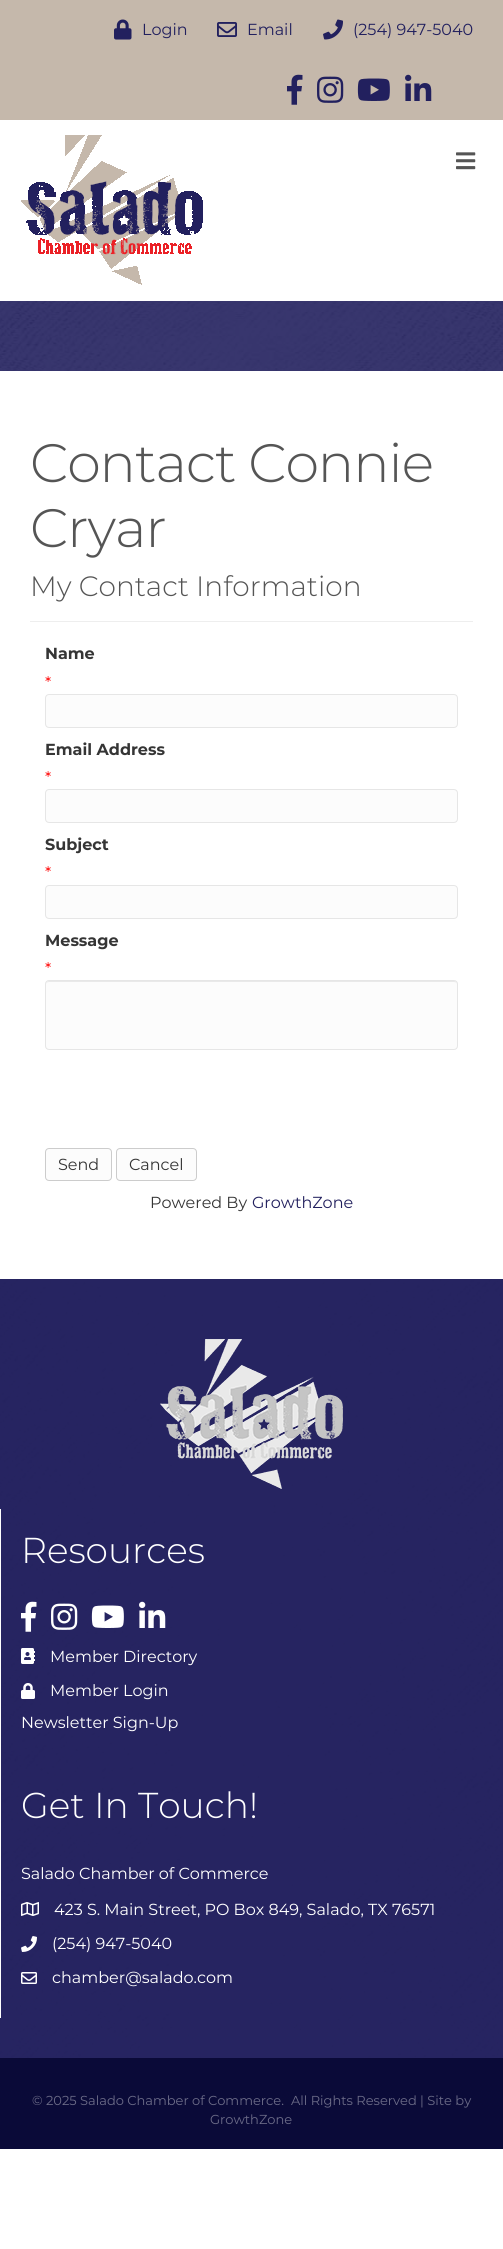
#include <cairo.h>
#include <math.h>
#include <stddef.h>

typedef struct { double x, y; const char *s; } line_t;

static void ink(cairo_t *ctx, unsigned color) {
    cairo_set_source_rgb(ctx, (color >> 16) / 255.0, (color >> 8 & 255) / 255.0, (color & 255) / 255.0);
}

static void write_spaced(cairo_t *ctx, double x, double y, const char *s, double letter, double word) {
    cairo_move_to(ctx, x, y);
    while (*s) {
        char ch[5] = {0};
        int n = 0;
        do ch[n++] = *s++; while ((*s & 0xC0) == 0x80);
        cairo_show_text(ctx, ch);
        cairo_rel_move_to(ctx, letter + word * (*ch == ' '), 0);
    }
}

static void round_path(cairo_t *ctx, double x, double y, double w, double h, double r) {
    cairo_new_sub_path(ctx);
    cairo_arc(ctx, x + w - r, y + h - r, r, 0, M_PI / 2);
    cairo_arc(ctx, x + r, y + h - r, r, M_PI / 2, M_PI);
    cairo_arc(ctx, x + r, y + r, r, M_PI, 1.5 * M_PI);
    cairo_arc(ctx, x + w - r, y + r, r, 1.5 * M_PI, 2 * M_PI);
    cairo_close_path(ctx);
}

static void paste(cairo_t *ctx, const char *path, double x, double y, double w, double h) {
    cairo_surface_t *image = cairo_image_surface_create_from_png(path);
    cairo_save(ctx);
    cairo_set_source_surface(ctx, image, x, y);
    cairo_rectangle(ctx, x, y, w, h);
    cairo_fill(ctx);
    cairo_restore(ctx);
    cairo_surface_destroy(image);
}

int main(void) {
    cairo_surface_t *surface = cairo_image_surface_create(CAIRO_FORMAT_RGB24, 503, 2249);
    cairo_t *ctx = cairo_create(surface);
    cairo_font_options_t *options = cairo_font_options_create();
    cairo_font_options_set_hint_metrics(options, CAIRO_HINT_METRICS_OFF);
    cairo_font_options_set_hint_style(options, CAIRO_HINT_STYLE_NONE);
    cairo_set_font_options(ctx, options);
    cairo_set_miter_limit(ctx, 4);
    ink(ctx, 0xFFFFFF);
    cairo_paint(ctx);
    ink(ctx, 0xC5B8AB);
    cairo_rectangle(ctx, 0, 0, 503, 120);
    cairo_fill(ctx);
    paste(ctx, "media/1.png", 114, 19, 18, 21);
    cairo_select_font_face(ctx, "Montserrat", CAIRO_FONT_SLANT_NORMAL, CAIRO_FONT_WEIGHT_NORMAL);
    cairo_set_font_size(ctx, 16);
    ink(ctx, 0x22205E);
    cairo_move_to(ctx, 142, 35);
    cairo_show_text(ctx, "Login");
    paste(ctx, "media/2.png", 217, 22, 20, 15);
    cairo_move_to(ctx, 247, 35);
    cairo_show_text(ctx, "Email");
    paste(ctx, "media/3.png", 323, 19, 20, 21);
    cairo_move_to(ctx, 353, 35);
    cairo_show_text(ctx, "(254) 947-5040");
    paste(ctx, "media/4.png", 287, 74, 16, 31);
    paste(ctx, "media/5.png", 317, 76, 27, 27);
    paste(ctx, "media/6.png", 357, 78, 33, 23);
    paste(ctx, "media/7.png", 405, 74, 27, 27);
    paste(ctx, "media/8.png", 21, 135, 182, 150);
    paste(ctx, "media/9.png", 456, 152, 20, 18);
    paste(ctx, "media/10.png", 0, 301, 503, 70);
    cairo_select_font_face(ctx, "Montserrat Light", CAIRO_FONT_SLANT_NORMAL, CAIRO_FONT_WEIGHT_NORMAL);
    cairo_set_font_size(ctx, 54);
    ink(ctx, 0x555555);
    write_spaced(ctx, 30, 482, "Contact Connie", -1, 0);
    write_spaced(ctx, 30, 547, "Cryar", -1, 0);
    cairo_set_font_size(ctx, 28);
    cairo_move_to(ctx, 30, 596);
    cairo_show_text(ctx, "My Contact Information");
    ink(ctx, 0xEEEEEE);
    cairo_rectangle(ctx, 30, 621, 443, 1);
    cairo_fill(ctx);
    cairo_select_font_face(ctx, "Montserrat", CAIRO_FONT_SLANT_NORMAL, CAIRO_FONT_WEIGHT_BOLD);
    cairo_set_font_size(ctx, 16);
    ink(ctx, 0x353535);
    cairo_move_to(ctx, 45, 659);
    cairo_show_text(ctx, "Name");
    cairo_select_font_face(ctx, "Montserrat", CAIRO_FONT_SLANT_NORMAL, CAIRO_FONT_WEIGHT_NORMAL);
    ink(ctx, 0xFF0000);
    cairo_move_to(ctx, 45, 688);
    cairo_show_text(ctx, "*");
    ink(ctx, 0xFCFCFC);
    round_path(ctx, 45.5, 694.5, 412, 33, 3.5);
    cairo_fill_preserve(ctx);
    ink(ctx, 0xE6E6E6);
    cairo_set_line_width(ctx, 1);
    cairo_stroke(ctx);
    cairo_select_font_face(ctx, "Montserrat", CAIRO_FONT_SLANT_NORMAL, CAIRO_FONT_WEIGHT_BOLD);
    ink(ctx, 0x353535);
    cairo_move_to(ctx, 45, 755);
    cairo_show_text(ctx, "Email Address");
    cairo_select_font_face(ctx, "Montserrat", CAIRO_FONT_SLANT_NORMAL, CAIRO_FONT_WEIGHT_NORMAL);
    ink(ctx, 0xFF0000);
    cairo_move_to(ctx, 45, 783);
    cairo_show_text(ctx, "*");
    ink(ctx, 0xFCFCFC);
    round_path(ctx, 45.5, 789.5, 412, 33, 3.5);
    cairo_fill_preserve(ctx);
    ink(ctx, 0xE6E6E6);
    cairo_stroke(ctx);
    cairo_select_font_face(ctx, "Montserrat", CAIRO_FONT_SLANT_NORMAL, CAIRO_FONT_WEIGHT_BOLD);
    ink(ctx, 0x353535);
    cairo_move_to(ctx, 45, 850);
    cairo_show_text(ctx, "Subject");
    cairo_select_font_face(ctx, "Montserrat", CAIRO_FONT_SLANT_NORMAL, CAIRO_FONT_WEIGHT_NORMAL);
    ink(ctx, 0xFF0000);
    cairo_move_to(ctx, 45, 878);
    cairo_show_text(ctx, "*");
    ink(ctx, 0xFCFCFC);
    round_path(ctx, 45.5, 885.5, 412, 33, 3.5);
    cairo_fill_preserve(ctx);
    ink(ctx, 0xE6E6E6);
    cairo_stroke(ctx);
    cairo_select_font_face(ctx, "Montserrat", CAIRO_FONT_SLANT_NORMAL, CAIRO_FONT_WEIGHT_BOLD);
    ink(ctx, 0x353535);
    cairo_move_to(ctx, 45, 946);
    cairo_show_text(ctx, "Message");
    cairo_select_font_face(ctx, "Montserrat", CAIRO_FONT_SLANT_NORMAL, CAIRO_FONT_WEIGHT_NORMAL);
    ink(ctx, 0xFF0000);
    cairo_move_to(ctx, 45, 974);
    cairo_show_text(ctx, "*");
    ink(ctx, 0xFCFCFC);
    round_path(ctx, 45, 980, 413, 70, 4);
    cairo_fill(ctx);
    ink(ctx, 0xE9E9E9);
    cairo_new_path(ctx);
    cairo_move_to(ctx, 49, 982);
    cairo_line_to(ctx, 454, 982);
    cairo_curve_to(ctx, 456, 982, 457, 983, 457, 985);
    cairo_curve_to(ctx, 457, 983, 456, 981, 454, 981);
    cairo_line_to(ctx, 49, 981);
    cairo_curve_to(ctx, 47, 981, 46, 983, 46, 985);
    cairo_curve_to(ctx, 46, 983, 47, 982, 49, 982);
    cairo_close_path(ctx);
    cairo_fill(ctx);
    round_path(ctx, 45.5, 980.5, 412, 69, 3.5);
    ink(ctx, 0xE6E6E6);
    cairo_stroke(ctx);
    ink(ctx, 0xFCFCFC);
    round_path(ctx, 45.5, 1148.5, 66, 32, 3.5);
    cairo_fill_preserve(ctx);
    ink(ctx, 0xCCCCCC);
    cairo_stroke(ctx);
    ink(ctx, 0x353535);
    cairo_move_to(ctx, 58, 1170);
    cairo_show_text(ctx, "Send");
    ink(ctx, 0xFCFCFC);
    round_path(ctx, 116.5, 1148.5, 80, 32, 3.5);
    cairo_fill_preserve(ctx);
    ink(ctx, 0xCCCCCC);
    cairo_stroke(ctx);
    ink(ctx, 0x353535);
    cairo_move_to(ctx, 129, 1170);
    cairo_show_text(ctx, "Cancel");
    cairo_move_to(ctx, 150, 1208);
    cairo_show_text(ctx, "Powered By");
    ink(ctx, 0x22205E);
    cairo_move_to(ctx, 252, 1208);
    cairo_show_text(ctx, "GrowthZone");
    paste(ctx, "media/11.png", 0, 1279, 503, 779);
    paste(ctx, "media/12.png", 160, 1339, 183, 150);
    ink(ctx, 0xFFFFFF);
    cairo_rectangle(ctx, 0, 1509, 1, 509);
    cairo_fill(ctx);
    cairo_select_font_face(ctx, "Montserrat Light", CAIRO_FONT_SLANT_NORMAL, CAIRO_FONT_WEIGHT_NORMAL);
    cairo_set_font_size(ctx, 36);
    cairo_move_to(ctx, 21, 1563);
    cairo_show_text(ctx, "Resources");
    paste(ctx, "media/13.png", 21, 1601, 16, 31);
    paste(ctx, "media/14.png", 51, 1603, 27, 27);
    paste(ctx, "media/15.png", 91, 1605, 33, 23);
    paste(ctx, "media/16.png", 139, 1601, 27, 27);
    paste(ctx, "media/17.png", 21, 1648, 14, 16);
    cairo_select_font_face(ctx, "Montserrat", CAIRO_FONT_SLANT_NORMAL, CAIRO_FONT_WEIGHT_NORMAL);
    cairo_set_font_size(ctx, 16);
    cairo_move_to(ctx, 50, 1662);
    cairo_show_text(ctx, "Member Directory");
    paste(ctx, "media/18.png", 21, 1683, 14, 16);
    cairo_move_to(ctx, 50, 1696);
    cairo_show_text(ctx, "Member Login");
    cairo_move_to(ctx, 21, 1728);
    cairo_show_text(ctx, "Newsletter Sign-Up");
    cairo_select_font_face(ctx, "Montserrat Light", CAIRO_FONT_SLANT_NORMAL, CAIRO_FONT_WEIGHT_NORMAL);
    cairo_set_font_size(ctx, 36);
    cairo_move_to(ctx, 21, 1818);
    cairo_show_text(ctx, "Get In Touch!");
    cairo_select_font_face(ctx, "Montserrat", CAIRO_FONT_SLANT_NORMAL, CAIRO_FONT_WEIGHT_NORMAL);
    cairo_set_font_size(ctx, 16);
    cairo_move_to(ctx, 21, 1879);
    cairo_show_text(ctx, "Salado Chamber of Commerce");
    paste(ctx, "media/19.png", 21, 1902, 18, 14);
    cairo_move_to(ctx, 54, 1915);
    cairo_show_text(ctx, "423 S. Main Street, PO Box 849, Salado, TX 76571");
    paste(ctx, "media/20.png", 21, 1936, 16, 16);
    cairo_move_to(ctx, 52, 1949);
    cairo_show_text(ctx, "(254) 947-5040");
    paste(ctx, "media/21.png", 21, 1972, 16, 12);
    cairo_move_to(ctx, 52, 1983);
    cairo_show_text(ctx, "chamber@salado.com");
    ink(ctx, 0x0A0A38);
    cairo_rectangle(ctx, 0, 2058, 503, 91);
    cairo_fill(ctx);
    cairo_set_font_size(ctx, 13);
    ink(ctx, 0x6C6C88);
    {
        static const line_t items[] = {
            {32, 2105, "© 2025 Salado Chamber of Commerce."},
            {291, 2105, "All Rights Reserved | Site by"},
            {210, 2124, "GrowthZone"},
        };
        for (size_t i = 0; i < sizeof items / sizeof *items; i++) {
            cairo_move_to(ctx, items[i].x, items[i].y);
            cairo_show_text(ctx, items[i].s);
        }
    }
    cairo_surface_write_to_png(surface, "image.png");
    cairo_font_options_destroy(options);
    cairo_destroy(ctx);
    cairo_surface_destroy(surface);
    return 0;
}
